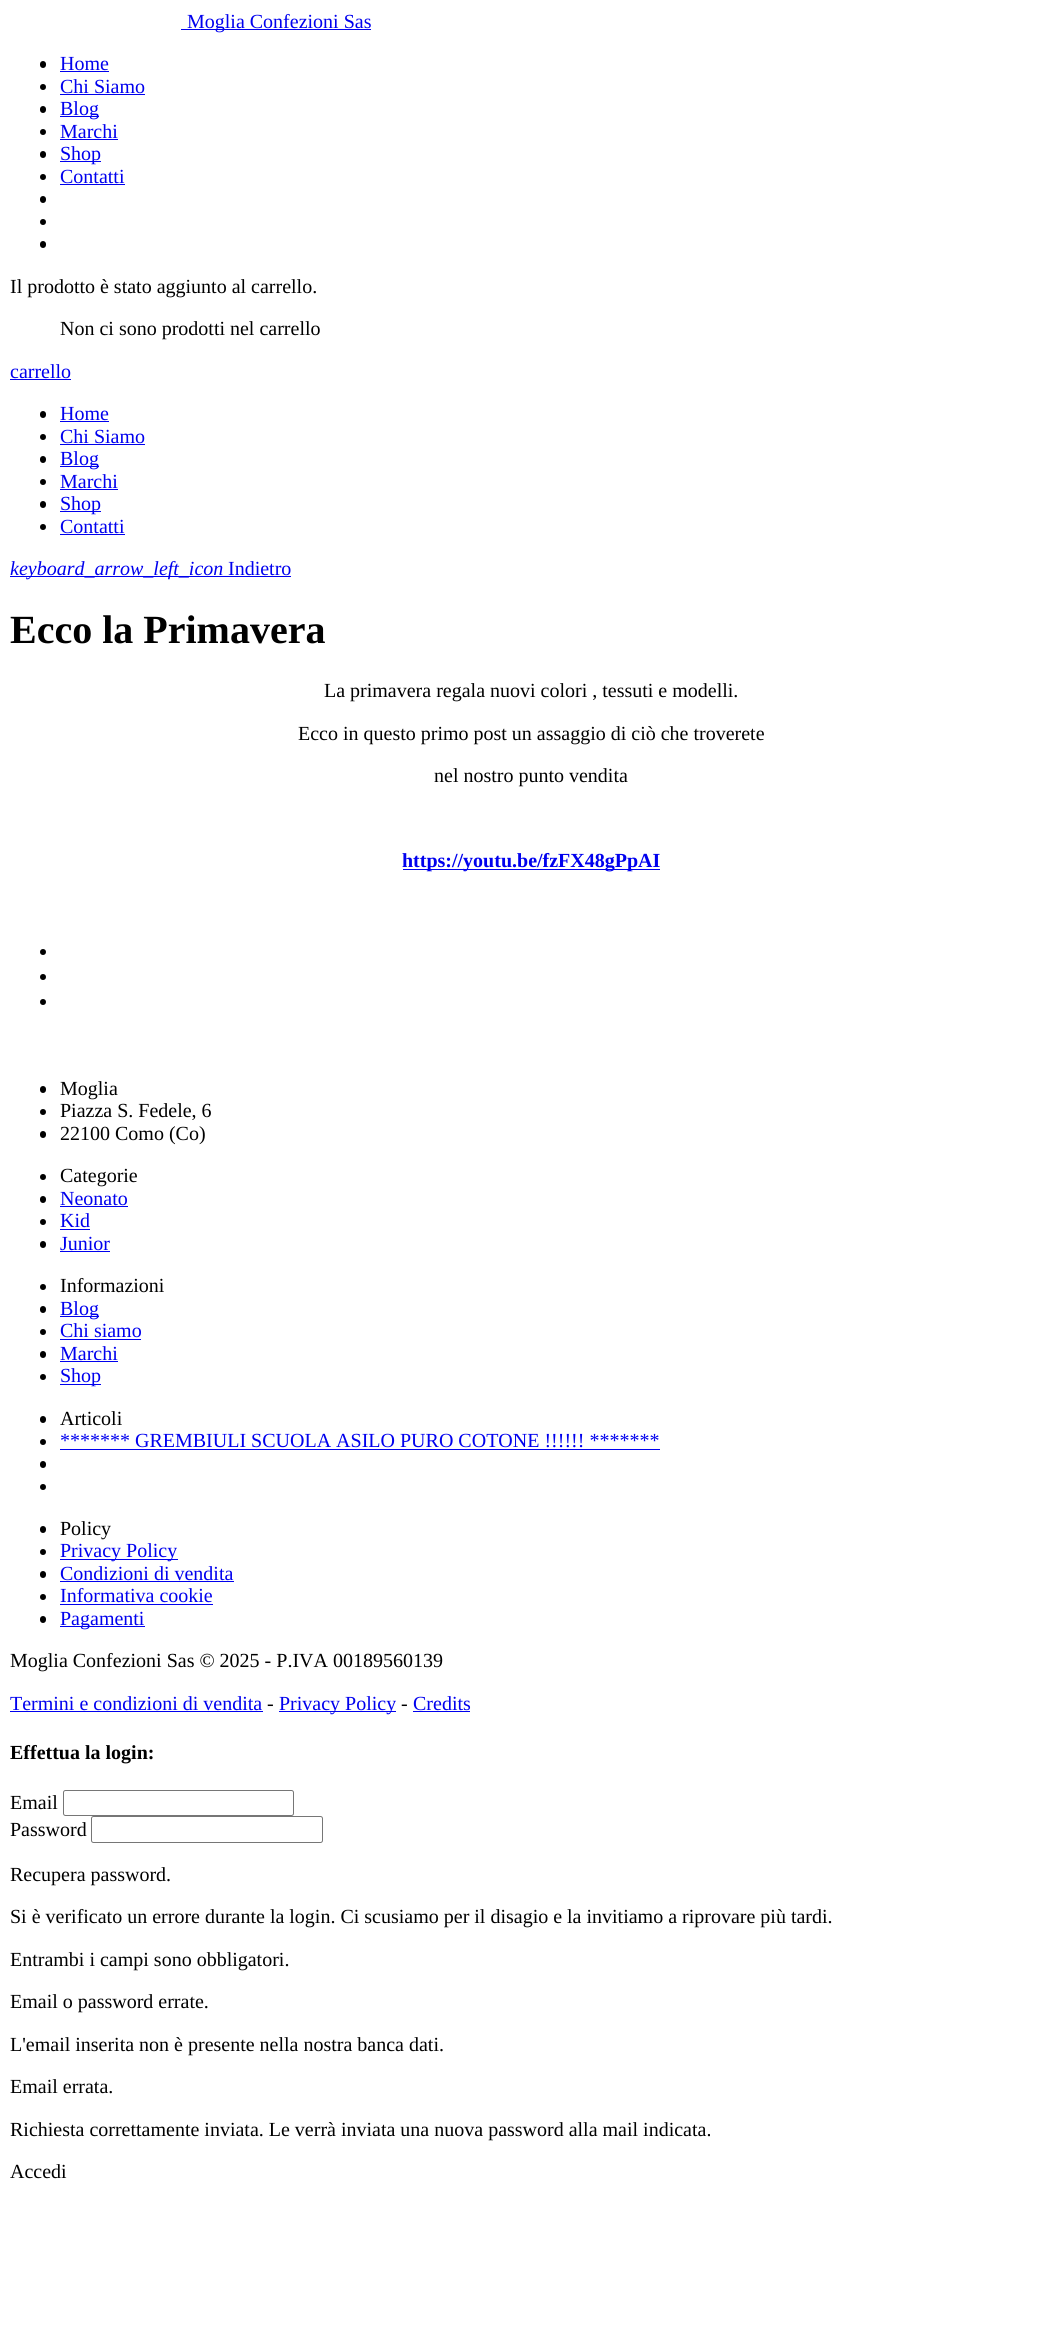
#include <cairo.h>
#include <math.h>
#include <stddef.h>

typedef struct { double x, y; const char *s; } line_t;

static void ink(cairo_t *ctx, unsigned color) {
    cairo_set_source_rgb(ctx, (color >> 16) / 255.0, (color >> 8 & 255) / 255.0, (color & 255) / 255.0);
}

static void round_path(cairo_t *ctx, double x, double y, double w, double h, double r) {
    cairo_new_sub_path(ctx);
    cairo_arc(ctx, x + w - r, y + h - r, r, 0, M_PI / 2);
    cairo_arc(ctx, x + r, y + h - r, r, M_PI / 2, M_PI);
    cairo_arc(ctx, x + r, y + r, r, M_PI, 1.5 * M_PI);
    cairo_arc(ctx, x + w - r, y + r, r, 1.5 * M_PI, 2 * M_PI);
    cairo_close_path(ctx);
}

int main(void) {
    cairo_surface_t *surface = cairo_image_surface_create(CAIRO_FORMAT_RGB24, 1062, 2350);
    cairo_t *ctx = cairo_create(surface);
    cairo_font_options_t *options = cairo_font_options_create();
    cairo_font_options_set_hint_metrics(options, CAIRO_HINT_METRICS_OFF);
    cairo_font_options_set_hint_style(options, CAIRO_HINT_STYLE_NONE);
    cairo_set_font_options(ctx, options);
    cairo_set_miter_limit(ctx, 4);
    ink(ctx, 0xFFFFFF);
    cairo_paint(ctx);
    ink(ctx, 0x0000EE);
    cairo_rectangle(ctx, 181, 29, 190, 1);
    cairo_fill(ctx);
    cairo_select_font_face(ctx, "Liberation Serif", CAIRO_FONT_SLANT_NORMAL, CAIRO_FONT_WEIGHT_NORMAL);
    cairo_set_font_size(ctx, 20);
    cairo_move_to(ctx, 187, 28);
    cairo_show_text(ctx, "Moglia Confezioni Sas");
    ink(ctx, 0x000000);
    round_path(ctx, 40, 61, 6, 7, 3);
    cairo_fill(ctx);
    ink(ctx, 0x0000EE);
    cairo_move_to(ctx, 60, 70);
    cairo_show_text(ctx, "Home");
    cairo_rectangle(ctx, 60, 71, 49, 1);
    cairo_fill(ctx);
    ink(ctx, 0x000000);
    cairo_arc(ctx, 43, 87, 3, 0, 2 * M_PI);
    cairo_fill(ctx);
    ink(ctx, 0x0000EE);
    cairo_move_to(ctx, 60, 93);
    cairo_show_text(ctx, "Chi Siamo");
    cairo_rectangle(ctx, 60, 94, 85, 1);
    cairo_fill(ctx);
    ink(ctx, 0x000000);
    round_path(ctx, 40, 106, 6, 7, 3);
    cairo_fill(ctx);
    ink(ctx, 0x0000EE);
    cairo_rectangle(ctx, 60, 116, 39, 1);
    cairo_fill(ctx);
    cairo_move_to(ctx, 60, 115);
    cairo_show_text(ctx, "Blog");
    ink(ctx, 0x000000);
    cairo_new_path(ctx);
    cairo_arc(ctx, 43, 132, 3, 0, 2 * M_PI);
    cairo_fill(ctx);
    ink(ctx, 0x0000EE);
    cairo_move_to(ctx, 60, 138);
    cairo_show_text(ctx, "Marchi");
    cairo_rectangle(ctx, 60, 139, 58, 1);
    cairo_fill(ctx);
    ink(ctx, 0x000000);
    round_path(ctx, 40, 151, 6, 7, 3);
    cairo_fill(ctx);
    ink(ctx, 0x0000EE);
    cairo_rectangle(ctx, 60, 161, 41, 1);
    cairo_fill(ctx);
    cairo_move_to(ctx, 60, 160);
    cairo_show_text(ctx, "Shop");
    ink(ctx, 0x000000);
    cairo_new_path(ctx);
    cairo_arc(ctx, 43, 177, 3, 0, 2 * M_PI);
    cairo_fill(ctx);
    ink(ctx, 0x0000EE);
    cairo_move_to(ctx, 60, 183);
    cairo_show_text(ctx, "Contatti");
    cairo_rectangle(ctx, 60, 184, 65, 1);
    cairo_fill(ctx);
    ink(ctx, 0x000000);
    round_path(ctx, 40, 196, 6, 7, 3);
    cairo_fill(ctx);
    cairo_arc(ctx, 43, 222, 3, 0, 2 * M_PI);
    cairo_fill(ctx);
    round_path(ctx, 40, 241, 6, 7, 3);
    cairo_fill(ctx);
    cairo_move_to(ctx, 10, 293);
    cairo_show_text(ctx, "Il prodotto è stato aggiunto al carrello.");
    cairo_move_to(ctx, 60, 335);
    cairo_show_text(ctx, "Non ci sono prodotti nel carrello");
    ink(ctx, 0x0000EE);
    cairo_move_to(ctx, 10, 378);
    cairo_show_text(ctx, "carrello");
    cairo_rectangle(ctx, 10, 379, 61, 1);
    cairo_fill(ctx);
    ink(ctx, 0x000000);
    round_path(ctx, 40, 411, 6, 7, 3);
    cairo_fill(ctx);
    ink(ctx, 0x0000EE);
    cairo_move_to(ctx, 60, 420);
    cairo_show_text(ctx, "Home");
    cairo_rectangle(ctx, 60, 421, 49, 1);
    cairo_fill(ctx);
    ink(ctx, 0x000000);
    cairo_arc(ctx, 43, 437, 3, 0, 2 * M_PI);
    cairo_fill(ctx);
    ink(ctx, 0x0000EE);
    cairo_move_to(ctx, 60, 443);
    cairo_show_text(ctx, "Chi Siamo");
    cairo_rectangle(ctx, 60, 444, 85, 1);
    cairo_fill(ctx);
    ink(ctx, 0x000000);
    round_path(ctx, 40, 456, 6, 7, 3);
    cairo_fill(ctx);
    ink(ctx, 0x0000EE);
    cairo_rectangle(ctx, 60, 466, 39, 1);
    cairo_fill(ctx);
    cairo_move_to(ctx, 60, 465);
    cairo_show_text(ctx, "Blog");
    ink(ctx, 0x000000);
    cairo_new_path(ctx);
    cairo_arc(ctx, 43, 482, 3, 0, 2 * M_PI);
    cairo_fill(ctx);
    ink(ctx, 0x0000EE);
    cairo_move_to(ctx, 60, 488);
    cairo_show_text(ctx, "Marchi");
    cairo_rectangle(ctx, 60, 489, 58, 1);
    cairo_fill(ctx);
    ink(ctx, 0x000000);
    round_path(ctx, 40, 501, 6, 7, 3);
    cairo_fill(ctx);
    ink(ctx, 0x0000EE);
    cairo_rectangle(ctx, 60, 511, 41, 1);
    cairo_fill(ctx);
    cairo_move_to(ctx, 60, 510);
    cairo_show_text(ctx, "Shop");
    ink(ctx, 0x000000);
    cairo_new_path(ctx);
    cairo_arc(ctx, 43, 527, 3, 0, 2 * M_PI);
    cairo_fill(ctx);
    ink(ctx, 0x0000EE);
    cairo_move_to(ctx, 60, 533);
    cairo_show_text(ctx, "Contatti");
    cairo_rectangle(ctx, 60, 534, 65, 1);
    cairo_fill(ctx);
    cairo_rectangle(ctx, 10, 576, 281, 1);
    cairo_fill(ctx);
    cairo_select_font_face(ctx, "Liberation Serif", CAIRO_FONT_SLANT_ITALIC, CAIRO_FONT_WEIGHT_NORMAL);
    cairo_move_to(ctx, 10, 575);
    cairo_show_text(ctx, "keyboard_arrow_left_icon");
    cairo_select_font_face(ctx, "Liberation Serif", CAIRO_FONT_SLANT_NORMAL, CAIRO_FONT_WEIGHT_NORMAL);
    cairo_move_to(ctx, 228, 575);
    cairo_show_text(ctx, "Indietro");
    cairo_select_font_face(ctx, "Liberation Serif", CAIRO_FONT_SLANT_NORMAL, CAIRO_FONT_WEIGHT_BOLD);
    cairo_set_font_size(ctx, 40);
    ink(ctx, 0x000000);
    cairo_move_to(ctx, 10, 643);
    cairo_show_text(ctx, "Ecco la Primavera");
    cairo_select_font_face(ctx, "Liberation Serif", CAIRO_FONT_SLANT_NORMAL, CAIRO_FONT_WEIGHT_NORMAL);
    cairo_set_font_size(ctx, 20);
    {
        static const line_t items[] = {
            {324, 697, "La primavera regala nuovi colori , tessuti e modelli."},
            {298, 740, "Ecco in questo primo post un assaggio di ciò che troverete"},
            {434, 782, "nel nostro punto vendita"},
        };
        for (size_t i = 0; i < sizeof items / sizeof *items; i++) {
            cairo_move_to(ctx, items[i].x, items[i].y);
            cairo_show_text(ctx, items[i].s);
        }
    }
    ink(ctx, 0x0000EE);
    cairo_rectangle(ctx, 403, 869, 257, 1);
    cairo_fill(ctx);
    cairo_select_font_face(ctx, "Liberation Serif", CAIRO_FONT_SLANT_NORMAL, CAIRO_FONT_WEIGHT_BOLD);
    cairo_move_to(ctx, 402, 867);
    cairo_show_text(ctx, "https://youtu.be/fzFX48gPpAI");
    ink(ctx, 0x000000);
    cairo_new_path(ctx);
    cairo_arc(ctx, 43, 952, 3, 0, 2 * M_PI);
    cairo_fill(ctx);
    cairo_arc(ctx, 43, 977, 3, 0, 2 * M_PI);
    cairo_fill(ctx);
    cairo_arc(ctx, 43, 1002, 3, 0, 2 * M_PI);
    cairo_fill(ctx);
    round_path(ctx, 40, 1086, 6, 7, 3);
    cairo_fill(ctx);
    cairo_select_font_face(ctx, "Liberation Serif", CAIRO_FONT_SLANT_NORMAL, CAIRO_FONT_WEIGHT_NORMAL);
    cairo_move_to(ctx, 60, 1095);
    cairo_show_text(ctx, "Moglia");
    cairo_new_path(ctx);
    cairo_arc(ctx, 43, 1112, 3, 0, 2 * M_PI);
    cairo_fill(ctx);
    cairo_move_to(ctx, 60, 1117);
    cairo_show_text(ctx, "Piazza S. Fedele, 6");
    round_path(ctx, 40, 1131, 6, 7, 3);
    cairo_fill(ctx);
    cairo_move_to(ctx, 60, 1140);
    cairo_show_text(ctx, "22100 Como (Co)");
    cairo_new_path(ctx);
    cairo_arc(ctx, 43, 1177, 3, 0, 2 * M_PI);
    cairo_fill(ctx);
    cairo_move_to(ctx, 60, 1182);
    cairo_show_text(ctx, "Categorie");
    round_path(ctx, 40, 1196, 6, 7, 3);
    cairo_fill(ctx);
    ink(ctx, 0x0000EE);
    cairo_move_to(ctx, 60, 1205);
    cairo_show_text(ctx, "Neonato");
    cairo_rectangle(ctx, 60, 1206, 68, 1);
    cairo_fill(ctx);
    ink(ctx, 0x000000);
    cairo_arc(ctx, 43, 1222, 3, 0, 2 * M_PI);
    cairo_fill(ctx);
    ink(ctx, 0x0000EE);
    cairo_move_to(ctx, 60, 1227);
    cairo_show_text(ctx, "Kid");
    cairo_rectangle(ctx, 60, 1229, 30, 1);
    cairo_fill(ctx);
    ink(ctx, 0x000000);
    round_path(ctx, 40, 1241, 6, 7, 3);
    cairo_fill(ctx);
    ink(ctx, 0x0000EE);
    cairo_move_to(ctx, 60, 1250);
    cairo_show_text(ctx, "Junior");
    cairo_rectangle(ctx, 60, 1251, 50, 1);
    cairo_fill(ctx);
    ink(ctx, 0x000000);
    cairo_arc(ctx, 43, 1287, 3, 0, 2 * M_PI);
    cairo_fill(ctx);
    cairo_move_to(ctx, 60, 1292);
    cairo_show_text(ctx, "Informazioni");
    round_path(ctx, 40, 1306, 6, 7, 3);
    cairo_fill(ctx);
    ink(ctx, 0x0000EE);
    cairo_rectangle(ctx, 60, 1316, 39, 1);
    cairo_fill(ctx);
    cairo_move_to(ctx, 60, 1315);
    cairo_show_text(ctx, "Blog");
    ink(ctx, 0x000000);
    cairo_new_path(ctx);
    cairo_arc(ctx, 43, 1332, 3, 0, 2 * M_PI);
    cairo_fill(ctx);
    ink(ctx, 0x0000EE);
    cairo_move_to(ctx, 60, 1337);
    cairo_show_text(ctx, "Chi siamo");
    cairo_rectangle(ctx, 60, 1339, 81, 1);
    cairo_fill(ctx);
    ink(ctx, 0x000000);
    round_path(ctx, 40, 1351, 6, 7, 3);
    cairo_fill(ctx);
    ink(ctx, 0x0000EE);
    cairo_move_to(ctx, 60, 1360);
    cairo_show_text(ctx, "Marchi");
    cairo_rectangle(ctx, 60, 1361, 58, 1);
    cairo_fill(ctx);
    ink(ctx, 0x000000);
    cairo_arc(ctx, 43, 1377, 3, 0, 2 * M_PI);
    cairo_fill(ctx);
    ink(ctx, 0x0000EE);
    cairo_rectangle(ctx, 60, 1384, 41, 1);
    cairo_fill(ctx);
    cairo_move_to(ctx, 60, 1382);
    cairo_show_text(ctx, "Shop");
    ink(ctx, 0x000000);
    round_path(ctx, 40, 1416, 6, 7, 3);
    cairo_fill(ctx);
    cairo_move_to(ctx, 60, 1425);
    cairo_show_text(ctx, "Articoli");
    cairo_new_path(ctx);
    cairo_arc(ctx, 43, 1442, 3, 0, 2 * M_PI);
    cairo_fill(ctx);
    ink(ctx, 0x0000EE);
    cairo_move_to(ctx, 60, 1447);
    cairo_show_text(ctx, "******* GREMBIULI SCUOLA ASILO PURO COTONE !!!!!! *******");
    cairo_rectangle(ctx, 60, 1449, 600, 1);
    cairo_fill(ctx);
    ink(ctx, 0x000000);
    round_path(ctx, 40, 1461, 6, 7, 3);
    cairo_fill(ctx);
    cairo_arc(ctx, 43, 1487, 3, 0, 2 * M_PI);
    cairo_fill(ctx);
    round_path(ctx, 40, 1526, 6, 7, 3);
    cairo_fill(ctx);
    cairo_move_to(ctx, 60, 1535);
    cairo_show_text(ctx, "Policy");
    cairo_new_path(ctx);
    cairo_arc(ctx, 43, 1552, 3, 0, 2 * M_PI);
    cairo_fill(ctx);
    ink(ctx, 0x0000EE);
    cairo_rectangle(ctx, 60, 1559, 118, 1);
    cairo_fill(ctx);
    cairo_move_to(ctx, 60, 1557);
    cairo_show_text(ctx, "Privacy Policy");
    ink(ctx, 0x000000);
    round_path(ctx, 40, 1571, 6, 7, 3);
    cairo_fill(ctx);
    ink(ctx, 0x0000EE);
    cairo_move_to(ctx, 60, 1580);
    cairo_show_text(ctx, "Condizioni di vendita");
    cairo_rectangle(ctx, 60, 1581, 174, 1);
    cairo_fill(ctx);
    ink(ctx, 0x000000);
    cairo_arc(ctx, 43, 1597, 3, 0, 2 * M_PI);
    cairo_fill(ctx);
    ink(ctx, 0x0000EE);
    cairo_move_to(ctx, 60, 1602);
    cairo_show_text(ctx, "Informativa cookie");
    cairo_rectangle(ctx, 60, 1604, 153, 1);
    cairo_fill(ctx);
    ink(ctx, 0x000000);
    round_path(ctx, 40, 1616, 6, 7, 3);
    cairo_fill(ctx);
    ink(ctx, 0x0000EE);
    cairo_rectangle(ctx, 60, 1626, 85, 1);
    cairo_fill(ctx);
    cairo_move_to(ctx, 60, 1625);
    cairo_show_text(ctx, "Pagamenti");
    ink(ctx, 0x000000);
    cairo_move_to(ctx, 10, 1667);
    cairo_show_text(ctx, "Moglia Confezioni Sas © 2025 - P.IVA 00189560139");
    ink(ctx, 0x0000EE);
    cairo_move_to(ctx, 10, 1710);
    cairo_show_text(ctx, "Termini e condizioni di vendita");
    cairo_rectangle(ctx, 10, 1711, 253, 1);
    cairo_fill(ctx);
    ink(ctx, 0x000000);
    cairo_move_to(ctx, 267, 1710);
    cairo_show_text(ctx, "-");
    ink(ctx, 0x0000EE);
    cairo_rectangle(ctx, 279, 1711, 117, 1);
    cairo_fill(ctx);
    cairo_move_to(ctx, 279, 1710);
    cairo_show_text(ctx, "Privacy Policy");
    ink(ctx, 0x000000);
    cairo_move_to(ctx, 401, 1710);
    cairo_show_text(ctx, "-");
    ink(ctx, 0x0000EE);
    cairo_move_to(ctx, 413, 1710);
    cairo_show_text(ctx, "Credits");
    cairo_rectangle(ctx, 413, 1711, 57, 1);
    cairo_fill(ctx);
    cairo_select_font_face(ctx, "Liberation Serif", CAIRO_FONT_SLANT_NORMAL, CAIRO_FONT_WEIGHT_BOLD);
    ink(ctx, 0x000000);
    cairo_move_to(ctx, 10, 1759);
    cairo_show_text(ctx, "Effettua la login:");
    cairo_select_font_face(ctx, "Liberation Serif", CAIRO_FONT_SLANT_NORMAL, CAIRO_FONT_WEIGHT_NORMAL);
    cairo_move_to(ctx, 10, 1809);
    cairo_show_text(ctx, "Email");
    round_path(ctx, 63.5, 1790.5, 230, 25, 2);
    ink(ctx, 0x767676);
    cairo_set_line_width(ctx, 1);
    cairo_stroke(ctx);
    ink(ctx, 0x000000);
    cairo_move_to(ctx, 10, 1836);
    cairo_show_text(ctx, "Password");
    round_path(ctx, 91.5, 1816.5, 231, 26, 2);
    ink(ctx, 0x767676);
    cairo_stroke(ctx);
    ink(ctx, 0x000000);
    {
        static const line_t items[] = {
            {10, 1881, "Recupera password."},
            {10, 1923, "Si è verificato un errore durante la login. Ci scusiamo per il disagio e la invitiamo a riprovare più tardi."},
            {10, 1966, "Entrambi i campi sono obbligatori."},
            {10, 2008, "Email o password errate."},
            {10, 2051, "L'email inserita non è presente nella nostra banca dati."},
            {10, 2093, "Email errata."},
            {10, 2136, "Richiesta correttamente inviata. Le verrà inviata una nuova password alla mail indicata."},
            {10, 2178, "Accedi"},
        };
        for (size_t i = 0; i < sizeof items / sizeof *items; i++) {
            cairo_move_to(ctx, items[i].x, items[i].y);
            cairo_show_text(ctx, items[i].s);
        }
    }
    cairo_surface_write_to_png(surface, "image.png");
    cairo_font_options_destroy(options);
    cairo_destroy(ctx);
    cairo_surface_destroy(surface);
    return 0;
}
